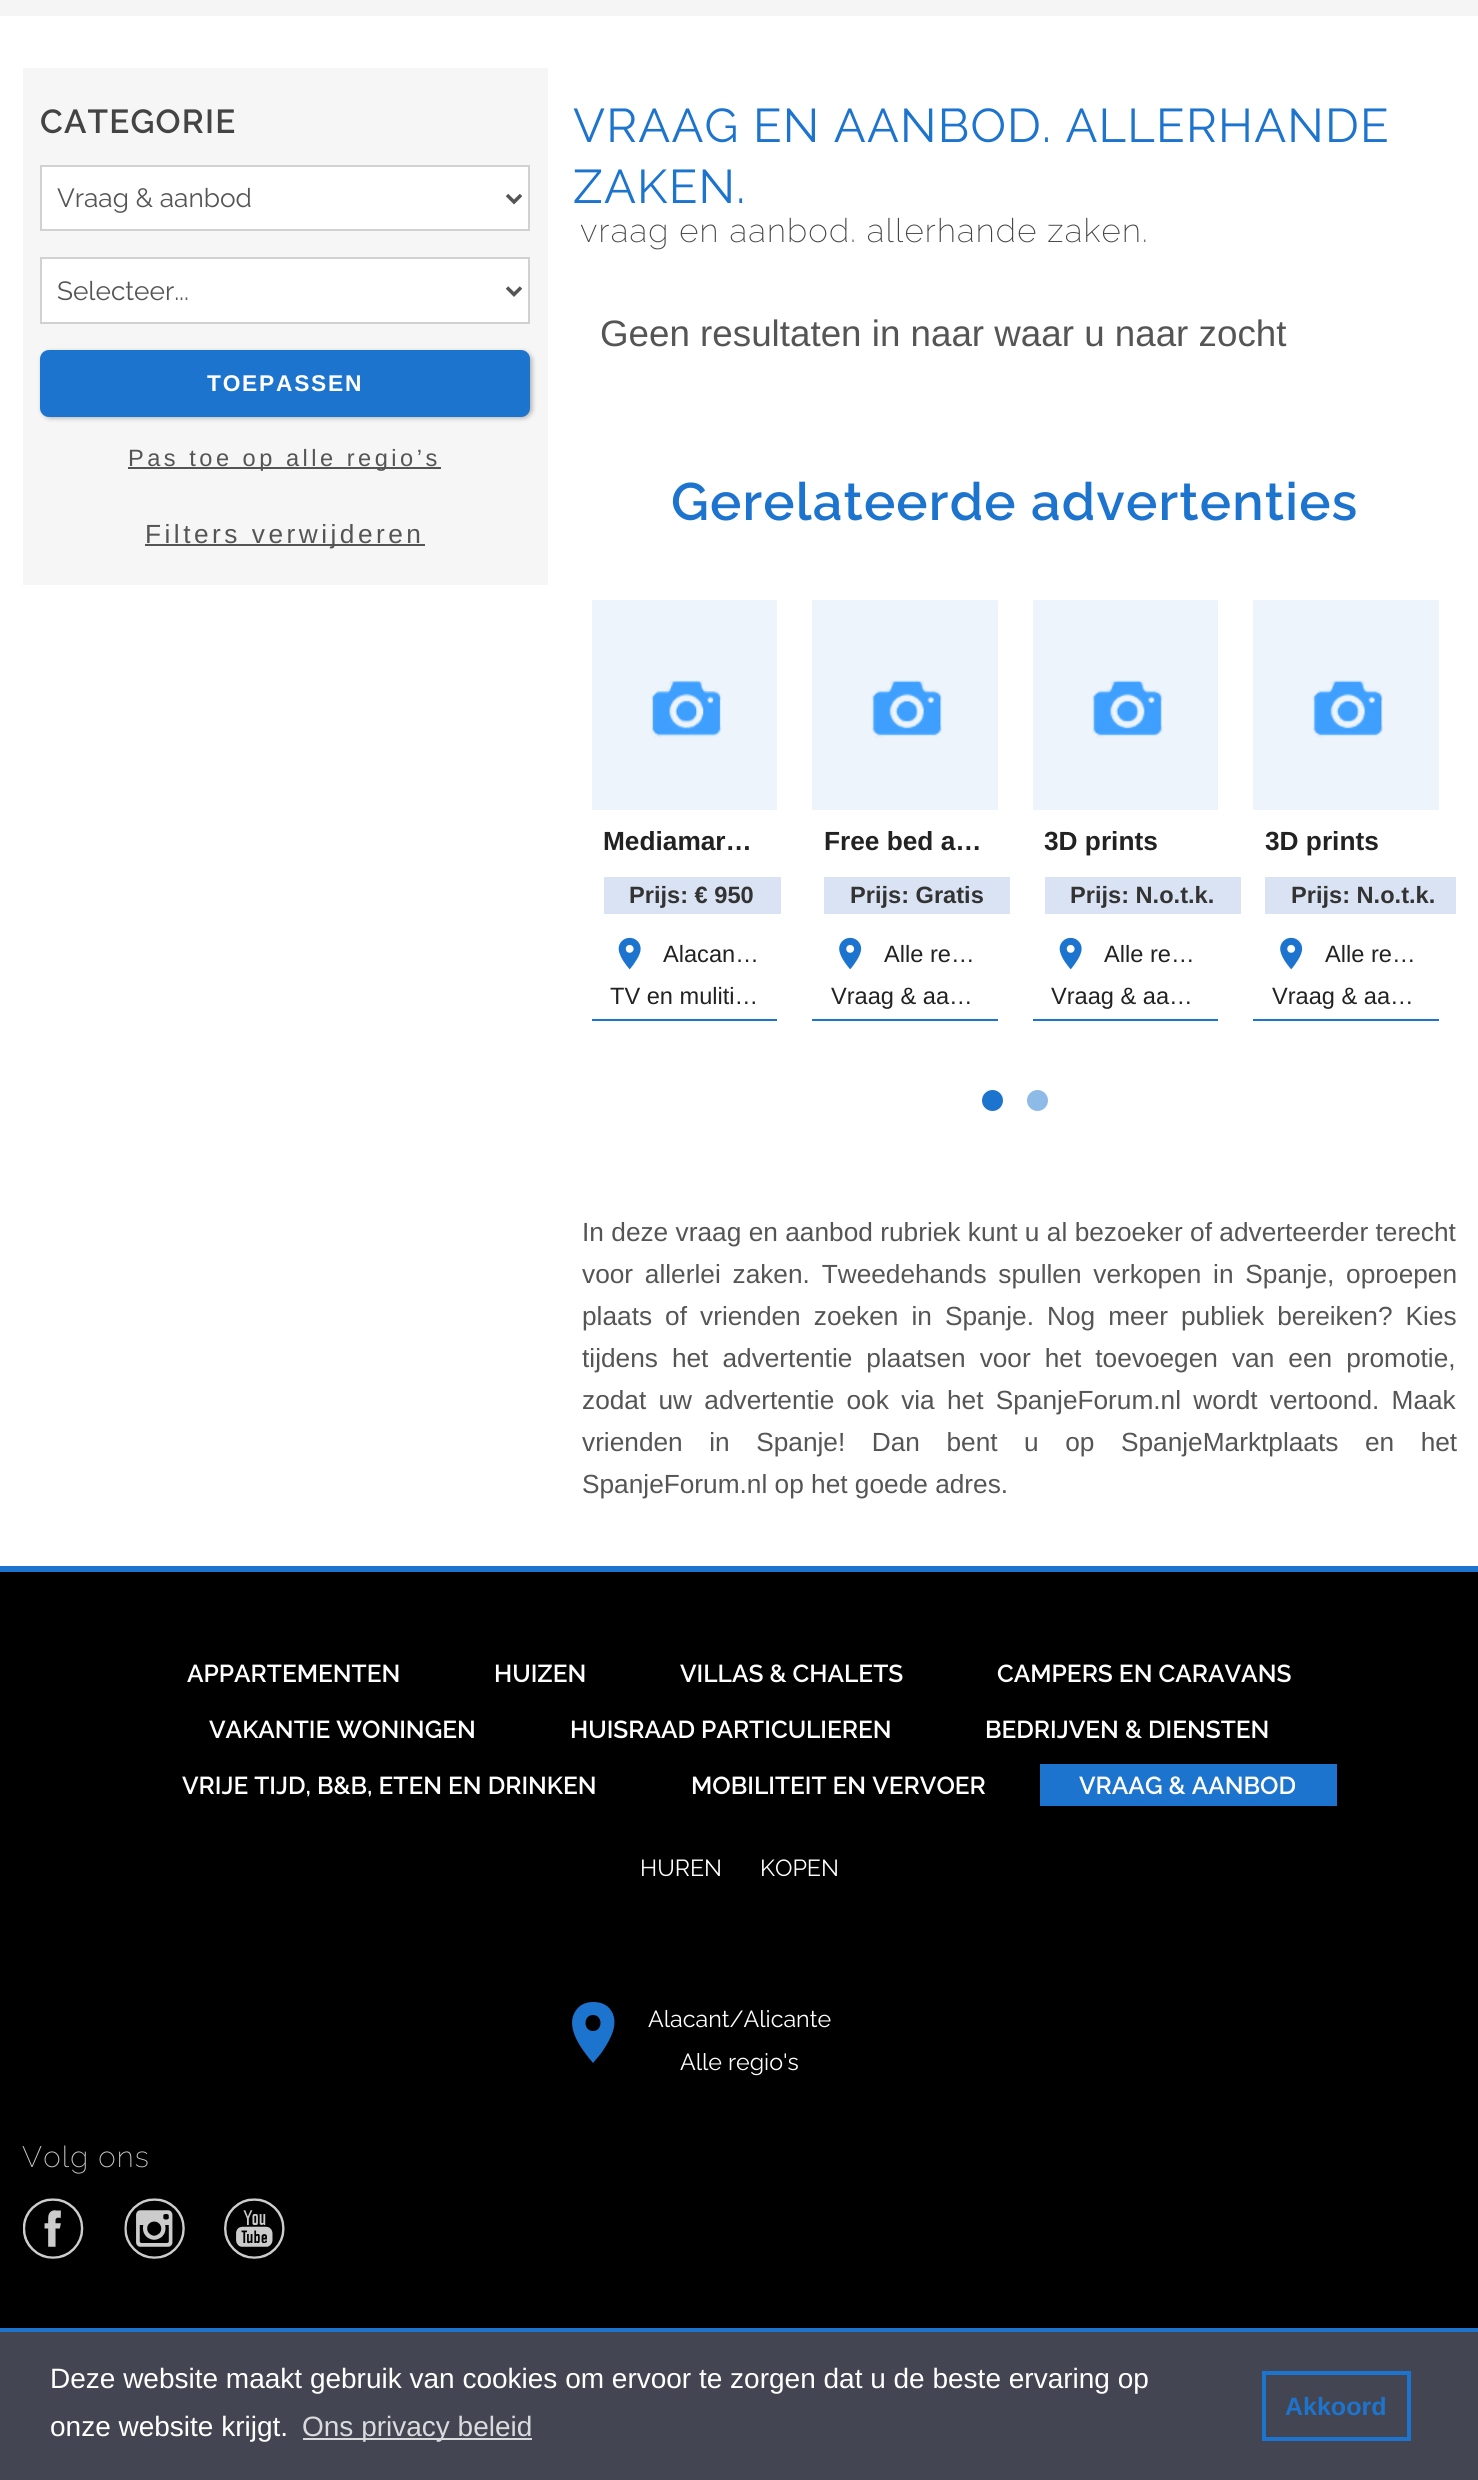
#include <cairo.h>
#include <math.h>
#include <stddef.h>

typedef struct { double x, y; const char *s; } line_t;

static void ink(cairo_t *ctx, unsigned color) {
    cairo_set_source_rgb(ctx, (color >> 16) / 255.0, (color >> 8 & 255) / 255.0, (color & 255) / 255.0);
}

static void write_spaced(cairo_t *ctx, double x, double y, const char *s, double letter, double word) {
    cairo_move_to(ctx, x, y);
    while (*s) {
        char ch[5] = {0};
        int n = 0;
        do ch[n++] = *s++; while ((*s & 0xC0) == 0x80);
        cairo_show_text(ctx, ch);
        cairo_rel_move_to(ctx, letter + word * (*ch == ' '), 0);
    }
}

static void round_path(cairo_t *ctx, double x, double y, double w, double h, double r) {
    cairo_new_sub_path(ctx);
    cairo_arc(ctx, x + w - r, y + h - r, r, 0, M_PI / 2);
    cairo_arc(ctx, x + r, y + h - r, r, M_PI / 2, M_PI);
    cairo_arc(ctx, x + r, y + r, r, M_PI, 1.5 * M_PI);
    cairo_arc(ctx, x + w - r, y + r, r, 1.5 * M_PI, 2 * M_PI);
    cairo_close_path(ctx);
}

static void blur_box(cairo_t *ctx, double x, double y, double w, double h, double r, double blur, double alpha) {
    cairo_push_group_with_content(ctx, CAIRO_CONTENT_ALPHA);
    cairo_set_operator(ctx, CAIRO_OPERATOR_SOURCE);
    for (int i = 15; i >= -15 && fmin(w, h) + blur * i / 3 > 0; i -= 2) {
        double e = blur * i / 6;
        cairo_set_source_rgba(ctx, 0, 0, 0, alpha * erfc((i - 1) / 8.5) / 2);
        round_path(ctx, x - e, y - e, w + 2 * e, h + 2 * e, fmax(0, fmin(r + e + blur * .6, fmin(w, h) / 2 + e)));
        cairo_fill(ctx);
    }
    cairo_pattern_t *soft = cairo_pop_group(ctx);
    cairo_mask(ctx, soft);
    cairo_pattern_destroy(soft);
}

static void paste(cairo_t *ctx, const char *path, double x, double y, double w, double h) {
    cairo_surface_t *image = cairo_image_surface_create_from_png(path);
    cairo_save(ctx);
    cairo_set_source_surface(ctx, image, x, y);
    cairo_rectangle(ctx, x, y, w, h);
    cairo_fill(ctx);
    cairo_restore(ctx);
    cairo_surface_destroy(image);
}

int main(void) {
    cairo_surface_t *surface = cairo_image_surface_create(CAIRO_FORMAT_RGB24, 1478, 2480);
    cairo_t *ctx = cairo_create(surface);
    cairo_font_options_t *options = cairo_font_options_create();
    cairo_font_options_set_hint_metrics(options, CAIRO_HINT_METRICS_OFF);
    cairo_font_options_set_hint_style(options, CAIRO_HINT_STYLE_NONE);
    cairo_set_font_options(ctx, options);
    cairo_set_miter_limit(ctx, 4);
    ink(ctx, 0xFFFFFF);
    cairo_paint(ctx);
    ink(ctx, 0xF5F5F5);
    cairo_rectangle(ctx, 0, 0, 1478, 16);
    cairo_fill(ctx);
    ink(ctx, 0xF6F6F6);
    cairo_rectangle(ctx, 23, 68, 525, 517);
    cairo_fill(ctx);
    cairo_select_font_face(ctx, "Raleway SemiBold", CAIRO_FONT_SLANT_NORMAL, CAIRO_FONT_WEIGHT_NORMAL);
    cairo_set_font_size(ctx, 33.25);
    ink(ctx, 0x444444);
    write_spaced(ctx, 40, 133, "CATEGORIE", 1.2, 0);
    ink(ctx, 0xFFFFFF);
    cairo_rectangle(ctx, 41, 166, 488, 64);
    cairo_fill_preserve(ctx);
    ink(ctx, 0xD1D1D1);
    cairo_stroke(ctx);
    cairo_new_path(ctx);
    cairo_move_to(ctx, 507, 195);
    cairo_line_to(ctx, 514, 202);
    cairo_line_to(ctx, 521, 195);
    ink(ctx, 0x555555);
    cairo_set_line_width(ctx, 3.5);
    cairo_stroke(ctx);
    cairo_select_font_face(ctx, "Raleway", CAIRO_FONT_SLANT_NORMAL, CAIRO_FONT_WEIGHT_NORMAL);
    cairo_set_font_size(ctx, 26.25);
    cairo_move_to(ctx, 57, 207);
    cairo_show_text(ctx, "Vraag & aanbod");
    ink(ctx, 0xFFFFFF);
    cairo_rectangle(ctx, 41, 258, 488, 65);
    cairo_fill_preserve(ctx);
    ink(ctx, 0xD1D1D1);
    cairo_set_line_width(ctx, 2);
    cairo_stroke(ctx);
    cairo_new_path(ctx);
    cairo_move_to(ctx, 507, 287.5);
    cairo_line_to(ctx, 514, 294.5);
    cairo_line_to(ctx, 521, 287.5);
    ink(ctx, 0x555555);
    cairo_set_line_width(ctx, 3.5);
    cairo_stroke(ctx);
    cairo_move_to(ctx, 57, 300);
    cairo_show_text(ctx, "Selecteer...");
    ink(ctx, 0x000000);
    blur_box(ctx, 42, 352, 490, 66, 9, 2.5, 0.3);
    ink(ctx, 0x1D74CF);
    round_path(ctx, 40, 350, 490, 67, 9);
    cairo_fill(ctx);
    cairo_select_font_face(ctx, "Liberation Sans", CAIRO_FONT_SLANT_NORMAL, CAIRO_FONT_WEIGHT_BOLD);
    cairo_set_font_size(ctx, 22.75);
    ink(ctx, 0xFFFFFF);
    write_spaced(ctx, 207, 391, "TOEPASSEN", 1.75, 0);
    ink(ctx, 0x555555);
    cairo_rectangle(ctx, 128, 467, 313, 2);
    cairo_fill(ctx);
    cairo_select_font_face(ctx, "Liberation Sans", CAIRO_FONT_SLANT_NORMAL, CAIRO_FONT_WEIGHT_NORMAL);
    cairo_set_font_size(ctx, 23.6);
    write_spaced(ctx, 128, 466, "Pas toe op alle regio’s", 3.5, 0);
    cairo_rectangle(ctx, 145, 544, 280, 2);
    cairo_fill(ctx);
    cairo_set_font_size(ctx, 26.25);
    write_spaced(ctx, 145, 543, "Filters verwijderen", 3.5, 0);
    cairo_select_font_face(ctx, "Raleway", CAIRO_FONT_SLANT_NORMAL, CAIRO_FONT_WEIGHT_NORMAL);
    cairo_set_font_size(ctx, 47.25);
    ink(ctx, 0x1D74CF);
    write_spaced(ctx, 573, 142, "VRAAG EN AANBOD. ALLERHANDE", 1.2, 0);
    write_spaced(ctx, 573, 203, "ZAKEN.", 1.2, 0);
    cairo_select_font_face(ctx, "Raleway ExtraLight", CAIRO_FONT_SLANT_NORMAL, CAIRO_FONT_WEIGHT_NORMAL);
    cairo_set_font_size(ctx, 33.1);
    ink(ctx, 0x444444);
    write_spaced(ctx, 580, 242, "vraag en aanbod. allerhande zaken.", 1.2, 0);
    cairo_select_font_face(ctx, "Liberation Sans", CAIRO_FONT_SLANT_NORMAL, CAIRO_FONT_WEIGHT_NORMAL);
    cairo_set_font_size(ctx, 36.75);
    ink(ctx, 0x555555);
    cairo_move_to(ctx, 600, 346);
    cairo_show_text(ctx, "Geen resultaten in naar waar u naar zocht");
    cairo_select_font_face(ctx, "Raleway SemiBold", CAIRO_FONT_SLANT_NORMAL, CAIRO_FONT_WEIGHT_NORMAL);
    cairo_set_font_size(ctx, 52.5);
    ink(ctx, 0x1D74CF);
    write_spaced(ctx, 671, 520, "Gerelateerde advertenties", 1.2, 0);
    cairo_rectangle(ctx, 592, 1019, 185, 2);
    cairo_fill(ctx);
    ink(ctx, 0xEEF4FB);
    cairo_rectangle(ctx, 592, 600, 185, 210);
    cairo_fill(ctx);
    paste(ctx, "media/1.png", 650, 680, 72, 58);
    cairo_select_font_face(ctx, "Liberation Sans", CAIRO_FONT_SLANT_NORMAL, CAIRO_FONT_WEIGHT_BOLD);
    cairo_set_font_size(ctx, 26.25);
    ink(ctx, 0x222222);
    cairo_move_to(ctx, 603, 850);
    cairo_show_text(ctx, "Mediamar…");
    ink(ctx, 0xDAE3F3);
    cairo_rectangle(ctx, 604, 877, 177, 37);
    cairo_fill(ctx);
    cairo_set_font_size(ctx, 23.6);
    ink(ctx, 0x333333);
    cairo_move_to(ctx, 629, 903);
    cairo_show_text(ctx, "Prijs: € 950");
    paste(ctx, "media/2.png", 618, 937, 23, 33);
    cairo_select_font_face(ctx, "Liberation Sans", CAIRO_FONT_SLANT_NORMAL, CAIRO_FONT_WEIGHT_NORMAL);
    ink(ctx, 0x222222);
    cairo_move_to(ctx, 663, 962);
    cairo_show_text(ctx, "Alacan…");
    cairo_move_to(ctx, 610, 1004);
    cairo_show_text(ctx, "TV en muliti…");
    ink(ctx, 0x1D74CF);
    cairo_rectangle(ctx, 812, 1019, 186, 2);
    cairo_fill(ctx);
    ink(ctx, 0xEEF4FB);
    cairo_rectangle(ctx, 812, 600, 186, 210);
    cairo_fill(ctx);
    paste(ctx, "media/3.png", 871, 680, 71, 58);
    cairo_select_font_face(ctx, "Liberation Sans", CAIRO_FONT_SLANT_NORMAL, CAIRO_FONT_WEIGHT_BOLD);
    cairo_set_font_size(ctx, 26.25);
    ink(ctx, 0x222222);
    cairo_move_to(ctx, 824, 850);
    cairo_show_text(ctx, "Free bed a…");
    ink(ctx, 0xDAE3F3);
    cairo_rectangle(ctx, 824, 877, 186, 37);
    cairo_fill(ctx);
    cairo_set_font_size(ctx, 23.6);
    ink(ctx, 0x333333);
    cairo_move_to(ctx, 850, 903);
    cairo_show_text(ctx, "Prijs: Gratis");
    paste(ctx, "media/4.png", 839, 937, 23, 33);
    cairo_select_font_face(ctx, "Liberation Sans", CAIRO_FONT_SLANT_NORMAL, CAIRO_FONT_WEIGHT_NORMAL);
    ink(ctx, 0x222222);
    cairo_move_to(ctx, 884, 962);
    cairo_show_text(ctx, "Alle re…");
    cairo_move_to(ctx, 831, 1004);
    cairo_show_text(ctx, "Vraag & aa…");
    ink(ctx, 0x1D74CF);
    cairo_rectangle(ctx, 1033, 1019, 185, 2);
    cairo_fill(ctx);
    ink(ctx, 0xEEF4FB);
    cairo_rectangle(ctx, 1033, 600, 185, 210);
    cairo_fill(ctx);
    paste(ctx, "media/5.png", 1092, 680, 71, 58);
    cairo_select_font_face(ctx, "Liberation Sans", CAIRO_FONT_SLANT_NORMAL, CAIRO_FONT_WEIGHT_BOLD);
    cairo_set_font_size(ctx, 26.25);
    ink(ctx, 0x222222);
    cairo_move_to(ctx, 1044, 850);
    cairo_show_text(ctx, "3D prints");
    ink(ctx, 0xDAE3F3);
    cairo_rectangle(ctx, 1045, 877, 196, 37);
    cairo_fill(ctx);
    cairo_set_font_size(ctx, 23.6);
    ink(ctx, 0x333333);
    cairo_move_to(ctx, 1070, 903);
    cairo_show_text(ctx, "Prijs: N.o.t.k.");
    paste(ctx, "media/2.png", 1059, 937, 23, 33);
    cairo_select_font_face(ctx, "Liberation Sans", CAIRO_FONT_SLANT_NORMAL, CAIRO_FONT_WEIGHT_NORMAL);
    ink(ctx, 0x222222);
    cairo_move_to(ctx, 1104, 962);
    cairo_show_text(ctx, "Alle re…");
    cairo_move_to(ctx, 1051, 1004);
    cairo_show_text(ctx, "Vraag & aa…");
    ink(ctx, 0x1D74CF);
    cairo_rectangle(ctx, 1253, 1019, 186, 2);
    cairo_fill(ctx);
    ink(ctx, 0xEEF4FB);
    cairo_rectangle(ctx, 1253, 600, 186, 210);
    cairo_fill(ctx);
    paste(ctx, "media/3.png", 1312, 680, 71, 58);
    cairo_select_font_face(ctx, "Liberation Sans", CAIRO_FONT_SLANT_NORMAL, CAIRO_FONT_WEIGHT_BOLD);
    cairo_set_font_size(ctx, 26.25);
    ink(ctx, 0x222222);
    cairo_move_to(ctx, 1265, 850);
    cairo_show_text(ctx, "3D prints");
    ink(ctx, 0xDAE3F3);
    cairo_rectangle(ctx, 1265, 877, 191, 37);
    cairo_fill(ctx);
    cairo_set_font_size(ctx, 23.6);
    ink(ctx, 0x333333);
    cairo_move_to(ctx, 1291, 903);
    cairo_show_text(ctx, "Prijs: N.o.t.k.");
    paste(ctx, "media/4.png", 1280, 937, 23, 33);
    cairo_select_font_face(ctx, "Liberation Sans", CAIRO_FONT_SLANT_NORMAL, CAIRO_FONT_WEIGHT_NORMAL);
    ink(ctx, 0x222222);
    cairo_move_to(ctx, 1325, 962);
    cairo_show_text(ctx, "Alle re…");
    cairo_move_to(ctx, 1272, 1004);
    cairo_show_text(ctx, "Vraag & aa…");
    ink(ctx, 0x1D74CF);
    cairo_new_path(ctx);
    cairo_arc(ctx, 992.5, 1100.5, 10.5, 0, 2 * M_PI);
    cairo_fill(ctx);
    ink(ctx, 0x8EBAE7);
    cairo_arc(ctx, 1037.5, 1100.5, 10.5, 0, 2 * M_PI);
    cairo_fill(ctx);
    cairo_set_font_size(ctx, 26.25);
    ink(ctx, 0x555555);
    write_spaced(ctx, 582, 1241, "In deze vraag en aanbod rubriek kunt u al bezoeker of adverteerder terecht", 0, 0.1);
    write_spaced(ctx, 582, 1283, "voor allerlei zaken. Tweedehands spullen verkopen in Spanje, oproepen", 0, 4.5);
    write_spaced(ctx, 582, 1325, "plaats of vrienden zoeken in Spanje. Nog meer publiek bereiken? Kies", 0, 5.75);
    write_spaced(ctx, 582, 1367, "tijdens het advertentie plaatsen voor het toevoegen van een promotie,", 0, 6.75);
    write_spaced(ctx, 582, 1409, "zodat uw advertentie ook via het SpanjeForum.nl wordt vertoond. Maak", 0, 5);
    write_spaced(ctx, 582, 1451, "vrienden in Spanje! Dan bent u op SpanjeMarktplaats en het", 0, 19.25);
    cairo_move_to(ctx, 582, 1493);
    cairo_show_text(ctx, "SpanjeForum.nl op het goede adres.");
    ink(ctx, 0x000000);
    cairo_rectangle(ctx, 0, 1572, 1478, 756);
    cairo_fill(ctx);
    ink(ctx, 0x1D74CF);
    cairo_rectangle(ctx, 0, 1566, 1478, 6);
    cairo_fill(ctx);
    cairo_select_font_face(ctx, "Raleway SemiBold", CAIRO_FONT_SLANT_NORMAL, CAIRO_FONT_WEIGHT_NORMAL);
    cairo_set_font_size(ctx, 24.5);
    ink(ctx, 0xFFFFFF);
    {
        static const line_t items[] = {
            {187, 1682, "APPARTEMENTEN"},
            {494, 1682, "HUIZEN"},
            {680, 1682, "VILLAS & CHALETS"},
            {997, 1682, "CAMPERS EN CARAVANS"},
            {209, 1738, "VAKANTIE WONINGEN"},
            {570, 1738, "HUISRAAD PARTICULIEREN"},
            {985, 1738, "BEDRIJVEN & DIENSTEN"},
            {182, 1794, "VRIJE TIJD, B&B, ETEN EN DRINKEN"},
            {691, 1794, "MOBILITEIT EN VERVOER"},
        };
        for (size_t i = 0; i < sizeof items / sizeof *items; i++) {
            cairo_move_to(ctx, items[i].x, items[i].y);
            cairo_show_text(ctx, items[i].s);
        }
    }
    ink(ctx, 0x1D74CF);
    cairo_rectangle(ctx, 1040, 1764, 297, 42);
    cairo_fill(ctx);
    ink(ctx, 0xFFFFFF);
    cairo_move_to(ctx, 1079, 1794);
    cairo_show_text(ctx, "VRAAG & AANBOD");
    cairo_select_font_face(ctx, "Raleway", CAIRO_FONT_SLANT_NORMAL, CAIRO_FONT_WEIGHT_NORMAL);
    cairo_set_font_size(ctx, 23.25);
    cairo_move_to(ctx, 640, 1876);
    cairo_show_text(ctx, "HUREN");
    cairo_move_to(ctx, 760, 1876);
    cairo_show_text(ctx, "KOPEN");
    ink(ctx, 0x1D74CF);
    cairo_new_path(ctx);
    cairo_move_to(ctx, 593, 2031);
    cairo_curve_to(ctx, 603, 2031, 603, 2015, 593, 2015);
    cairo_curve_to(ctx, 583, 2015, 583, 2031, 593, 2031);
    cairo_close_path(ctx);
    cairo_move_to(ctx, 593, 2002);
    cairo_curve_to(ctx, 600, 2002, 606, 2004, 610, 2009);
    cairo_curve_to(ctx, 620, 2022, 611, 2038, 604, 2049);
    cairo_curve_to(ctx, 601, 2054, 597, 2058, 593, 2063);
    cairo_curve_to(ctx, 582, 2050, 563, 2026, 577, 2009);
    cairo_curve_to(ctx, 581, 2004, 587, 2002, 593, 2002);
    cairo_close_path(ctx);
    cairo_fill(ctx);
    ink(ctx, 0xFFFFFF);
    cairo_move_to(ctx, 648, 2027);
    cairo_show_text(ctx, "Alacant/Alicante");
    cairo_move_to(ctx, 680, 2070);
    cairo_show_text(ctx, "Alle regio's");
    cairo_select_font_face(ctx, "Raleway ExtraLight", CAIRO_FONT_SLANT_NORMAL, CAIRO_FONT_WEIGHT_NORMAL);
    cairo_set_font_size(ctx, 29.5);
    ink(ctx, 0xCCCCCC);
    write_spaced(ctx, 22, 2167, "Volg ons", 1.2, 0);
    paste(ctx, "media/6.png", 23, 2198, 61, 61);
    paste(ctx, "media/7.png", 124, 2198, 61, 61);
    paste(ctx, "media/8.png", 224, 2198, 61, 61);
    ink(ctx, 0x434652);
    cairo_rectangle(ctx, 0, 2332, 1478, 148);
    cairo_fill(ctx);
    ink(ctx, 0x1D74CF);
    cairo_rectangle(ctx, 0, 2328, 1478, 4);
    cairo_fill(ctx);
    cairo_select_font_face(ctx, "Liberation Sans", CAIRO_FONT_SLANT_NORMAL, CAIRO_FONT_WEIGHT_NORMAL);
    cairo_set_font_size(ctx, 28);
    ink(ctx, 0xFFFFFF);
    cairo_move_to(ctx, 50, 2388);
    cairo_show_text(ctx, "Deze website maakt gebruik van cookies om ervoor te zorgen dat u de beste ervaring op");
    cairo_move_to(ctx, 50, 2436);
    cairo_show_text(ctx, "onze website krijgt.");
    ink(ctx, 0xD9DADC);
    cairo_rectangle(ctx, 303, 2438, 229, 2);
    cairo_fill(ctx);
    cairo_move_to(ctx, 302, 2436);
    cairo_show_text(ctx, "Ons privacy beleid");
    cairo_rectangle(ctx, 1264, 2373, 145, 66);
    ink(ctx, 0x1D74CF);
    cairo_set_line_width(ctx, 4);
    cairo_stroke(ctx);
    cairo_select_font_face(ctx, "Liberation Sans", CAIRO_FONT_SLANT_NORMAL, CAIRO_FONT_WEIGHT_BOLD);
    cairo_set_font_size(ctx, 25);
    cairo_move_to(ctx, 1285, 2415);
    cairo_show_text(ctx, "Akkoord");
    cairo_surface_write_to_png(surface, "image.png");
    cairo_font_options_destroy(options);
    cairo_destroy(ctx);
    cairo_surface_destroy(surface);
    return 0;
}
